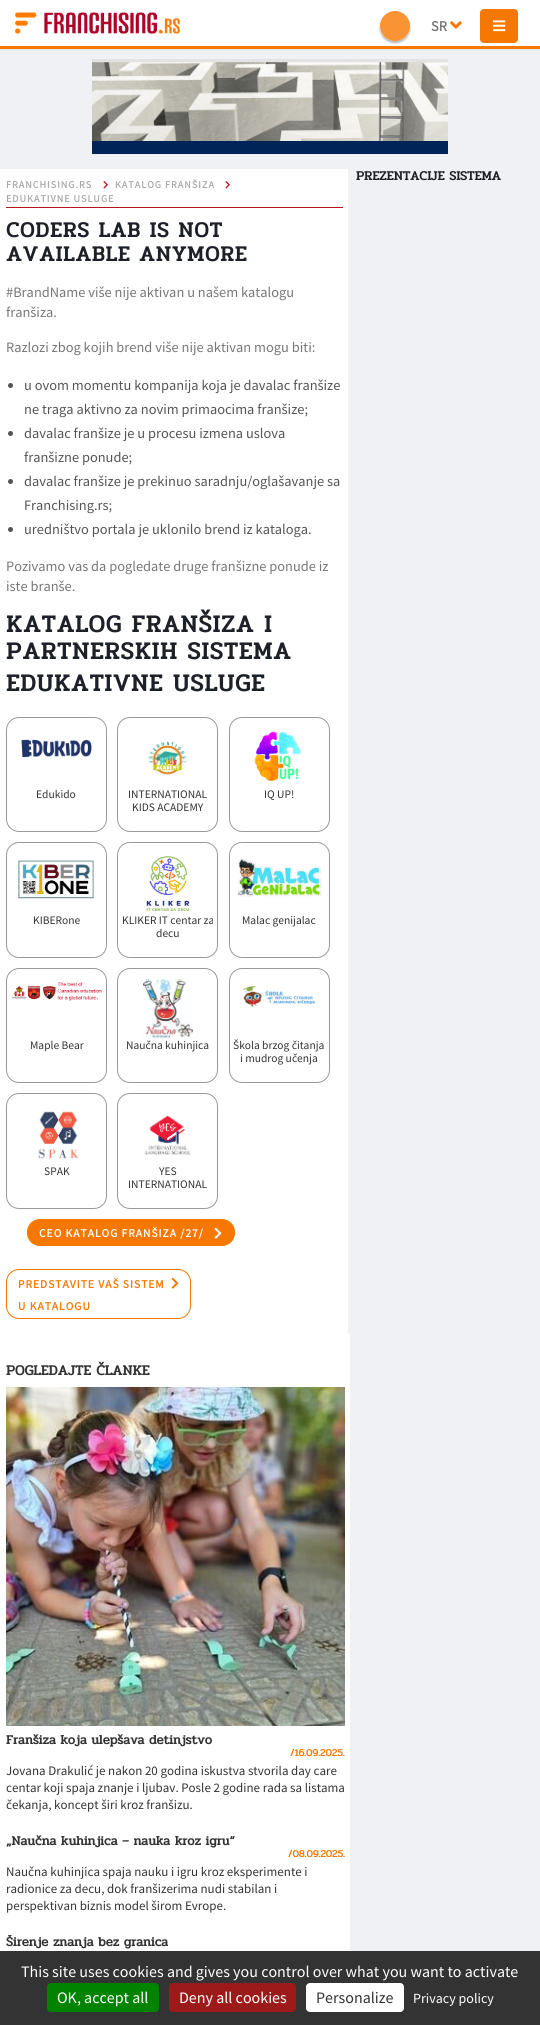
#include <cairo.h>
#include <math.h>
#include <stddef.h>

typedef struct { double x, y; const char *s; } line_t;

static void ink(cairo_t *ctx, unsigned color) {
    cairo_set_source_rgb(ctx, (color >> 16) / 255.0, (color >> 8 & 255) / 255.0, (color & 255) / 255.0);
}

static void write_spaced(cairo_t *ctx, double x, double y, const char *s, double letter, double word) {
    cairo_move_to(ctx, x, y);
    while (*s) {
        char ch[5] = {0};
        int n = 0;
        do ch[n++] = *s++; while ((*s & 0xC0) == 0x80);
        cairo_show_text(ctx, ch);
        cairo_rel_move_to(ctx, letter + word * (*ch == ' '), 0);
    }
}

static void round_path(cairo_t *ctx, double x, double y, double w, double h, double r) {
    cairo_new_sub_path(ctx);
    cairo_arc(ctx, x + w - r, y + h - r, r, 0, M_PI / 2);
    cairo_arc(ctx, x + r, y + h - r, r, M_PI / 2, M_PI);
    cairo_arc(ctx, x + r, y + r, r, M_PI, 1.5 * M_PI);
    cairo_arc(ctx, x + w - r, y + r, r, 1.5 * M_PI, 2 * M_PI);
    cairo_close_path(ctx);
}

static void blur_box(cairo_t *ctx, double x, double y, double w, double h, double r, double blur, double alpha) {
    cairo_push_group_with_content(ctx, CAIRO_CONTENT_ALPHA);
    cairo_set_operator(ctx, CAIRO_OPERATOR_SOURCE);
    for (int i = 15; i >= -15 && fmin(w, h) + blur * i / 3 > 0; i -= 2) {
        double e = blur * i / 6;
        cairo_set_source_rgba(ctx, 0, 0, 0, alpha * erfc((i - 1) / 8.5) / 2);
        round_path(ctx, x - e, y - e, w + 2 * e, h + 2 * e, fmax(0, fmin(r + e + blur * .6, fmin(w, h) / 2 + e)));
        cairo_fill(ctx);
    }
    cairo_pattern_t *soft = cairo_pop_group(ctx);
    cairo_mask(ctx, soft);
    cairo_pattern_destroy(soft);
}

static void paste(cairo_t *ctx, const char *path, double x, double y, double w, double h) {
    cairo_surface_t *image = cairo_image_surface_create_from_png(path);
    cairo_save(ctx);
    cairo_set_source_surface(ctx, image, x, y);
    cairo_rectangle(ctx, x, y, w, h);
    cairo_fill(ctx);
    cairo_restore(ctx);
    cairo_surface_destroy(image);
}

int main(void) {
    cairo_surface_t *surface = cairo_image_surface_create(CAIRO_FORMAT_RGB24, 540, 2025);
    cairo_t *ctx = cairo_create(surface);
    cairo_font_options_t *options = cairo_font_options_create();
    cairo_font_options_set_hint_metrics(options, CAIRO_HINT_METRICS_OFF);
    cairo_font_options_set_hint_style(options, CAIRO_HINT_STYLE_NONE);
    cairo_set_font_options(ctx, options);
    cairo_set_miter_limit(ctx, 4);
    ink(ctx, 0xF0F1F4);
    cairo_paint(ctx);
    ink(ctx, 0x000000);
    blur_box(ctx, 0, 0, 540, 49, 0, 1.5, 0.1);
    ink(ctx, 0xFFFFFF);
    cairo_rectangle(ctx, 0, 0, 540, 46);
    cairo_fill(ctx);
    ink(ctx, 0xF77800);
    cairo_rectangle(ctx, 0, 46, 540, 3);
    cairo_fill(ctx);
    paste(ctx, "media/1.png", 15, 12, 165, 22);
    cairo_save(ctx);
    cairo_set_fill_rule(ctx, CAIRO_FILL_RULE_EVEN_ODD);
    cairo_new_path(ctx);
    cairo_move_to(ctx, 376, 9);
    cairo_line_to(ctx, 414, 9);
    cairo_line_to(ctx, 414, 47);
    cairo_line_to(ctx, 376, 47);
    cairo_close_path(ctx);
    cairo_move_to(ctx, 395, 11);
    cairo_curve_to(ctx, 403.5, 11, 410, 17.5, 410, 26);
    cairo_curve_to(ctx, 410, 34.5, 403.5, 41, 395, 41);
    cairo_curve_to(ctx, 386.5, 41, 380, 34.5, 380, 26);
    cairo_curve_to(ctx, 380, 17.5, 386.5, 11, 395, 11);
    cairo_close_path(ctx);
    cairo_clip(ctx);
    ink(ctx, 0x000000);
    blur_box(ctx, 380, 13, 30, 30, 15, 1, 0.3);
    cairo_restore(ctx);
    cairo_set_source_rgba(ctx, 0.969, 0.471, 0, 0.8);
    cairo_arc(ctx, 395, 26, 15, 0, 2 * M_PI);
    cairo_fill(ctx);
    cairo_select_font_face(ctx, "Source Sans Pro", CAIRO_FONT_SLANT_NORMAL, CAIRO_FONT_WEIGHT_BOLD);
    cairo_set_font_size(ctx, 14.4);
    ink(ctx, 0x777777);
    cairo_move_to(ctx, 431, 31);
    cairo_show_text(ctx, "SR");
    paste(ctx, "media/2.png", 450, 21, 12, 8);
    ink(ctx, 0xF77800);
    round_path(ctx, 480, 9, 38, 34, 4);
    cairo_fill(ctx);
    paste(ctx, "media/3.png", 493, 20, 13, 12);
    paste(ctx, "media/4.png", 92, 59, 356, 95);
    cairo_select_font_face(ctx, "Pridi", CAIRO_FONT_SLANT_NORMAL, CAIRO_FONT_WEIGHT_BOLD);
    cairo_set_font_size(ctx, 13);
    ink(ctx, 0x1D2127);
    cairo_move_to(ctx, 356, 180);
    cairo_show_text(ctx, "PREZENTACIJE SISTEMA");
    ink(ctx, 0xFFFFFF);
    cairo_rectangle(ctx, 0, 169, 348, 1164);
    cairo_fill(ctx);
    ink(ctx, 0xBD121D);
    cairo_rectangle(ctx, 6, 207, 337, 1);
    cairo_fill(ctx);
    cairo_select_font_face(ctx, "Source Sans Pro", CAIRO_FONT_SLANT_NORMAL, CAIRO_FONT_WEIGHT_BOLD);
    cairo_set_font_size(ctx, 10.1);
    ink(ctx, 0xAAAAAA);
    write_spaced(ctx, 6, 188, "FRANCHISING.RS", 1, 0);
    paste(ctx, "media/5.png", 103, 181, 5, 8);
    write_spaced(ctx, 115, 188, "KATALOG FRANŠIZA", 1, 0);
    paste(ctx, "media/5.png", 225, 181, 5, 8);
    write_spaced(ctx, 6, 202, "EDUKATIVNE USLUGE", 1, 0);
    cairo_select_font_face(ctx, "Pridi", CAIRO_FONT_SLANT_NORMAL, CAIRO_FONT_WEIGHT_BOLD);
    cairo_set_font_size(ctx, 21.7);
    ink(ctx, 0x1D2127);
    write_spaced(ctx, 6, 237, "CODERS LAB IS NOT", 1, 0);
    write_spaced(ctx, 6, 261, "AVAILABLE ANYMORE", 1, 0);
    cairo_select_font_face(ctx, "Source Sans Pro", CAIRO_FONT_SLANT_NORMAL, CAIRO_FONT_WEIGHT_NORMAL);
    cairo_set_font_size(ctx, 14.4);
    ink(ctx, 0x777777);
    {
        static const line_t items[] = {
            {6, 297, "#BrandName više nije aktivan u našem katalogu"},
            {6, 317, "franšiza."},
            {6, 352, "Razlozi zbog kojih brend više nije aktivan mogu biti:"},
        };
        for (size_t i = 0; i < sizeof items / sizeof *items; i++) {
            cairo_move_to(ctx, items[i].x, items[i].y);
            cairo_show_text(ctx, items[i].s);
        }
    }
    ink(ctx, 0x555555);
    cairo_new_path(ctx);
    cairo_arc(ctx, 10.5, 385.5, 2.5, 0, 2 * M_PI);
    cairo_fill(ctx);
    cairo_move_to(ctx, 24, 390);
    cairo_show_text(ctx, "u ovom momentu kompanija koja je davalac franšize");
    cairo_move_to(ctx, 24, 414);
    cairo_show_text(ctx, "ne traga aktivno za novim primaocima franšize;");
    cairo_new_path(ctx);
    cairo_arc(ctx, 10.5, 433.5, 2.5, 0, 2 * M_PI);
    cairo_fill(ctx);
    cairo_move_to(ctx, 24, 438);
    cairo_show_text(ctx, "davalac franšize je u procesu izmena uslova");
    cairo_move_to(ctx, 24, 462);
    cairo_show_text(ctx, "franšizne ponude;");
    cairo_new_path(ctx);
    cairo_arc(ctx, 10.5, 481.5, 2.5, 0, 2 * M_PI);
    cairo_fill(ctx);
    cairo_move_to(ctx, 24, 486);
    cairo_show_text(ctx, "davalac franšize je prekinuo saradnju/oglašavanje sa");
    cairo_move_to(ctx, 24, 510);
    cairo_show_text(ctx, "Franchising.rs;");
    cairo_new_path(ctx);
    cairo_arc(ctx, 10.5, 529.5, 2.5, 0, 2 * M_PI);
    cairo_fill(ctx);
    cairo_move_to(ctx, 24, 534);
    cairo_show_text(ctx, "uredništvo portala je uklonilo brend iz kataloga.");
    ink(ctx, 0x777777);
    cairo_move_to(ctx, 6, 571);
    cairo_show_text(ctx, "Pozivamo vas da pogledate druge franšizne ponude iz");
    cairo_move_to(ctx, 6, 591);
    cairo_show_text(ctx, "iste branše.");
    cairo_select_font_face(ctx, "Pridi", CAIRO_FONT_SLANT_NORMAL, CAIRO_FONT_WEIGHT_BOLD);
    cairo_set_font_size(ctx, 24.5);
    ink(ctx, 0x1D2127);
    {
        static const line_t items[] = {
            {6, 632, "KATALOG FRANŠIZA I"},
            {6, 659, "PARTNERSKIH SISTEMA"},
            {6, 691, "EDUKATIVNE USLUGE"},
        };
        for (size_t i = 0; i < sizeof items / sizeof *items; i++) {
            write_spaced(ctx, items[i].x, items[i].y, items[i].s, 1, 0);
        }
    }
    round_path(ctx, 6.5, 717.5, 100, 114, 12.5);
    ink(ctx, 0x999999);
    cairo_set_line_width(ctx, 1);
    cairo_stroke(ctx);
    paste(ctx, "media/6.png", 21, 739, 71, 19);
    cairo_select_font_face(ctx, "Source Sans Pro", CAIRO_FONT_SLANT_NORMAL, CAIRO_FONT_WEIGHT_NORMAL);
    cairo_set_font_size(ctx, 11.5);
    ink(ctx, 0x333333);
    cairo_move_to(ctx, 36, 798);
    cairo_show_text(ctx, "Edukido");
    round_path(ctx, 117.5, 717.5, 100, 114, 12.5);
    ink(ctx, 0x999999);
    cairo_stroke(ctx);
    paste(ctx, "media/7.png", 148, 741, 39, 35);
    ink(ctx, 0x333333);
    cairo_move_to(ctx, 128, 798);
    cairo_show_text(ctx, "INTERNATIONAL");
    cairo_move_to(ctx, 132, 811);
    cairo_show_text(ctx, "KIDS ACADEMY");
    round_path(ctx, 229.5, 717.5, 100, 114, 12.5);
    ink(ctx, 0x999999);
    cairo_stroke(ctx);
    paste(ctx, "media/8.png", 254, 731, 47, 51);
    ink(ctx, 0x333333);
    cairo_move_to(ctx, 264, 798);
    cairo_show_text(ctx, "IQ UP!");
    round_path(ctx, 6.5, 842.5, 100, 115, 12.5);
    ink(ctx, 0x999999);
    cairo_stroke(ctx);
    paste(ctx, "media/9.png", 18, 860, 76, 39);
    ink(ctx, 0x333333);
    cairo_move_to(ctx, 33, 924);
    cairo_show_text(ctx, "KIBERone");
    round_path(ctx, 117.5, 842.5, 100, 115, 12.5);
    ink(ctx, 0x999999);
    cairo_stroke(ctx);
    paste(ctx, "media/10.png", 144, 855, 47, 58);
    ink(ctx, 0x333333);
    cairo_move_to(ctx, 122, 924);
    cairo_show_text(ctx, "KLIKER IT centar za");
    cairo_move_to(ctx, 156, 937);
    cairo_show_text(ctx, "decu");
    round_path(ctx, 229.5, 842.5, 100, 115, 12.5);
    ink(ctx, 0x999999);
    cairo_stroke(ctx);
    paste(ctx, "media/11.png", 237, 858, 85, 39);
    ink(ctx, 0x333333);
    cairo_move_to(ctx, 242, 924);
    cairo_show_text(ctx, "Malac genijalac");
    round_path(ctx, 6.5, 968.5, 100, 114, 12.5);
    ink(ctx, 0x999999);
    cairo_stroke(ctx);
    paste(ctx, "media/12.png", 12, 982, 90, 19);
    ink(ctx, 0x333333);
    cairo_move_to(ctx, 30, 1049);
    cairo_show_text(ctx, "Maple Bear");
    round_path(ctx, 117.5, 968.5, 100, 114, 12.5);
    ink(ctx, 0x999999);
    cairo_stroke(ctx);
    paste(ctx, "media/13.png", 143, 979, 50, 60);
    ink(ctx, 0x333333);
    cairo_move_to(ctx, 126, 1049);
    cairo_show_text(ctx, "Naučna kuhinjica");
    round_path(ctx, 229.5, 968.5, 100, 114, 12.5);
    ink(ctx, 0x999999);
    cairo_stroke(ctx);
    paste(ctx, "media/14.png", 242, 986, 74, 21);
    ink(ctx, 0x333333);
    cairo_move_to(ctx, 233, 1049);
    cairo_show_text(ctx, "Škola brzog čitanja");
    cairo_move_to(ctx, 240, 1062);
    cairo_show_text(ctx, "i mudrog učenja");
    round_path(ctx, 6.5, 1093.5, 100, 115, 12.5);
    ink(ctx, 0x999999);
    cairo_stroke(ctx);
    paste(ctx, "media/15.png", 38, 1111, 41, 48);
    ink(ctx, 0x333333);
    cairo_move_to(ctx, 44, 1175);
    cairo_show_text(ctx, "SPAK");
    round_path(ctx, 117.5, 1093.5, 100, 115, 12.5);
    ink(ctx, 0x999999);
    cairo_stroke(ctx);
    paste(ctx, "media/16.png", 144, 1115, 47, 40);
    ink(ctx, 0x333333);
    cairo_move_to(ctx, 159, 1175);
    cairo_show_text(ctx, "YES");
    cairo_move_to(ctx, 128, 1188);
    cairo_show_text(ctx, "INTERNATIONAL");
    ink(ctx, 0xF77800);
    round_path(ctx, 27.5, 1219.5, 207, 26, 12.5);
    cairo_fill_preserve(ctx);
    cairo_stroke(ctx);
    cairo_select_font_face(ctx, "Source Sans Pro", CAIRO_FONT_SLANT_NORMAL, CAIRO_FONT_WEIGHT_BOLD);
    ink(ctx, 0xFFFFFF);
    write_spaced(ctx, 39, 1237, "CEO KATALOG FRANŠIZA /27/", 1, 0);
    paste(ctx, "media/17.png", 214, 1227, 8, 12);
    round_path(ctx, 6.5, 1269.5, 184, 49, 12.5);
    ink(ctx, 0xF77800);
    cairo_stroke(ctx);
    write_spaced(ctx, 18, 1288, "PREDSTAVITE VAŠ SISTEM", 1, 0);
    write_spaced(ctx, 18, 1310, "U KATALOGU", 1, 0);
    paste(ctx, "media/18.png", 171, 1277, 8, 12);
    ink(ctx, 0xFFFFFF);
    cairo_rectangle(ctx, 0, 1333, 350, 618);
    cairo_fill(ctx);
    cairo_select_font_face(ctx, "Pridi", CAIRO_FONT_SLANT_NORMAL, CAIRO_FONT_WEIGHT_BOLD);
    cairo_set_font_size(ctx, 14.4);
    ink(ctx, 0x333333);
    cairo_move_to(ctx, 6, 1375);
    cairo_show_text(ctx, "POGLEDAJTE ČLANKE");
    paste(ctx, "media/19.png", 6, 1387, 339, 339);
    cairo_set_font_size(ctx, 13);
    cairo_move_to(ctx, 6, 1744);
    cairo_show_text(ctx, "Franšiza koja ulepšava detinjstvo");
    cairo_set_font_size(ctx, 10.1);
    ink(ctx, 0xF77800);
    cairo_move_to(ctx, 290, 1756);
    cairo_show_text(ctx, "/16.09.2025.");
    cairo_select_font_face(ctx, "Source Sans Pro", CAIRO_FONT_SLANT_NORMAL, CAIRO_FONT_WEIGHT_NORMAL);
    cairo_set_font_size(ctx, 13);
    ink(ctx, 0x333333);
    {
        static const line_t items[] = {
            {6, 1775, "Jovana Drakulić je nakon 20 godina iskustva stvorila day care"},
            {6, 1792, "centar koji spaja znanje i ljubav. Posle 2 godine rada sa listama"},
            {6, 1809, "čekanja, koncept širi kroz franšizu."},
        };
        for (size_t i = 0; i < sizeof items / sizeof *items; i++) {
            cairo_move_to(ctx, items[i].x, items[i].y);
            cairo_show_text(ctx, items[i].s);
        }
    }
    cairo_select_font_face(ctx, "Pridi", CAIRO_FONT_SLANT_NORMAL, CAIRO_FONT_WEIGHT_BOLD);
    cairo_move_to(ctx, 6, 1845);
    cairo_show_text(ctx, "„Naučna kuhinjica – nauka kroz igru“");
    cairo_set_font_size(ctx, 10.1);
    ink(ctx, 0xF77800);
    cairo_move_to(ctx, 288, 1857);
    cairo_show_text(ctx, "/08.09.2025.");
    cairo_select_font_face(ctx, "Source Sans Pro", CAIRO_FONT_SLANT_NORMAL, CAIRO_FONT_WEIGHT_NORMAL);
    cairo_set_font_size(ctx, 13);
    ink(ctx, 0x333333);
    {
        static const line_t items[] = {
            {6, 1876, "Naučna kuhinjica spaja nauku i igru kroz eksperimente i"},
            {6, 1893, "radionice za decu, dok franšizerima nudi stabilan i"},
            {6, 1910, "perspektivan biznis model širom Evrope."},
        };
        for (size_t i = 0; i < sizeof items / sizeof *items; i++) {
            cairo_move_to(ctx, items[i].x, items[i].y);
            cairo_show_text(ctx, items[i].s);
        }
    }
    cairo_save(ctx);
    cairo_rectangle(ctx, 6, 1935, 339, 26);
    cairo_clip(ctx);
    cairo_select_font_face(ctx, "Pridi", CAIRO_FONT_SLANT_NORMAL, CAIRO_FONT_WEIGHT_BOLD);
    cairo_move_to(ctx, 6, 1946);
    cairo_show_text(ctx, "Širenje znanja bez granica");
    cairo_restore(ctx);
    cairo_rectangle(ctx, 0, 1951, 540, 74);
    cairo_fill(ctx);
    cairo_set_font_size(ctx, 16);
    ink(ctx, 0xFFFFFF);
    cairo_move_to(ctx, 21, 1977);
    cairo_show_text(ctx, "This site uses cookies and gives you control over what you want to activate");
    ink(ctx, 0x008300);
    round_path(ctx, 47, 1983, 112, 29, 4);
    cairo_fill(ctx);
    ink(ctx, 0xFFFFFF);
    cairo_move_to(ctx, 57, 2003);
    cairo_show_text(ctx, "OK, accept all");
    ink(ctx, 0x9C1A1A);
    round_path(ctx, 169, 1983, 127, 29, 4);
    cairo_fill(ctx);
    ink(ctx, 0xFFFFFF);
    cairo_move_to(ctx, 179, 2003);
    cairo_show_text(ctx, "Deny all cookies");
    round_path(ctx, 306, 1983, 98, 29, 4);
    cairo_fill(ctx);
    ink(ctx, 0x333333);
    cairo_move_to(ctx, 316, 2003);
    cairo_show_text(ctx, "Personalize");
    cairo_set_font_size(ctx, 14);
    ink(ctx, 0xFFFFFF);
    cairo_move_to(ctx, 413, 2003);
    cairo_show_text(ctx, "Privacy policy");
    cairo_surface_write_to_png(surface, "image.png");
    cairo_font_options_destroy(options);
    cairo_destroy(ctx);
    cairo_surface_destroy(surface);
    return 0;
}
